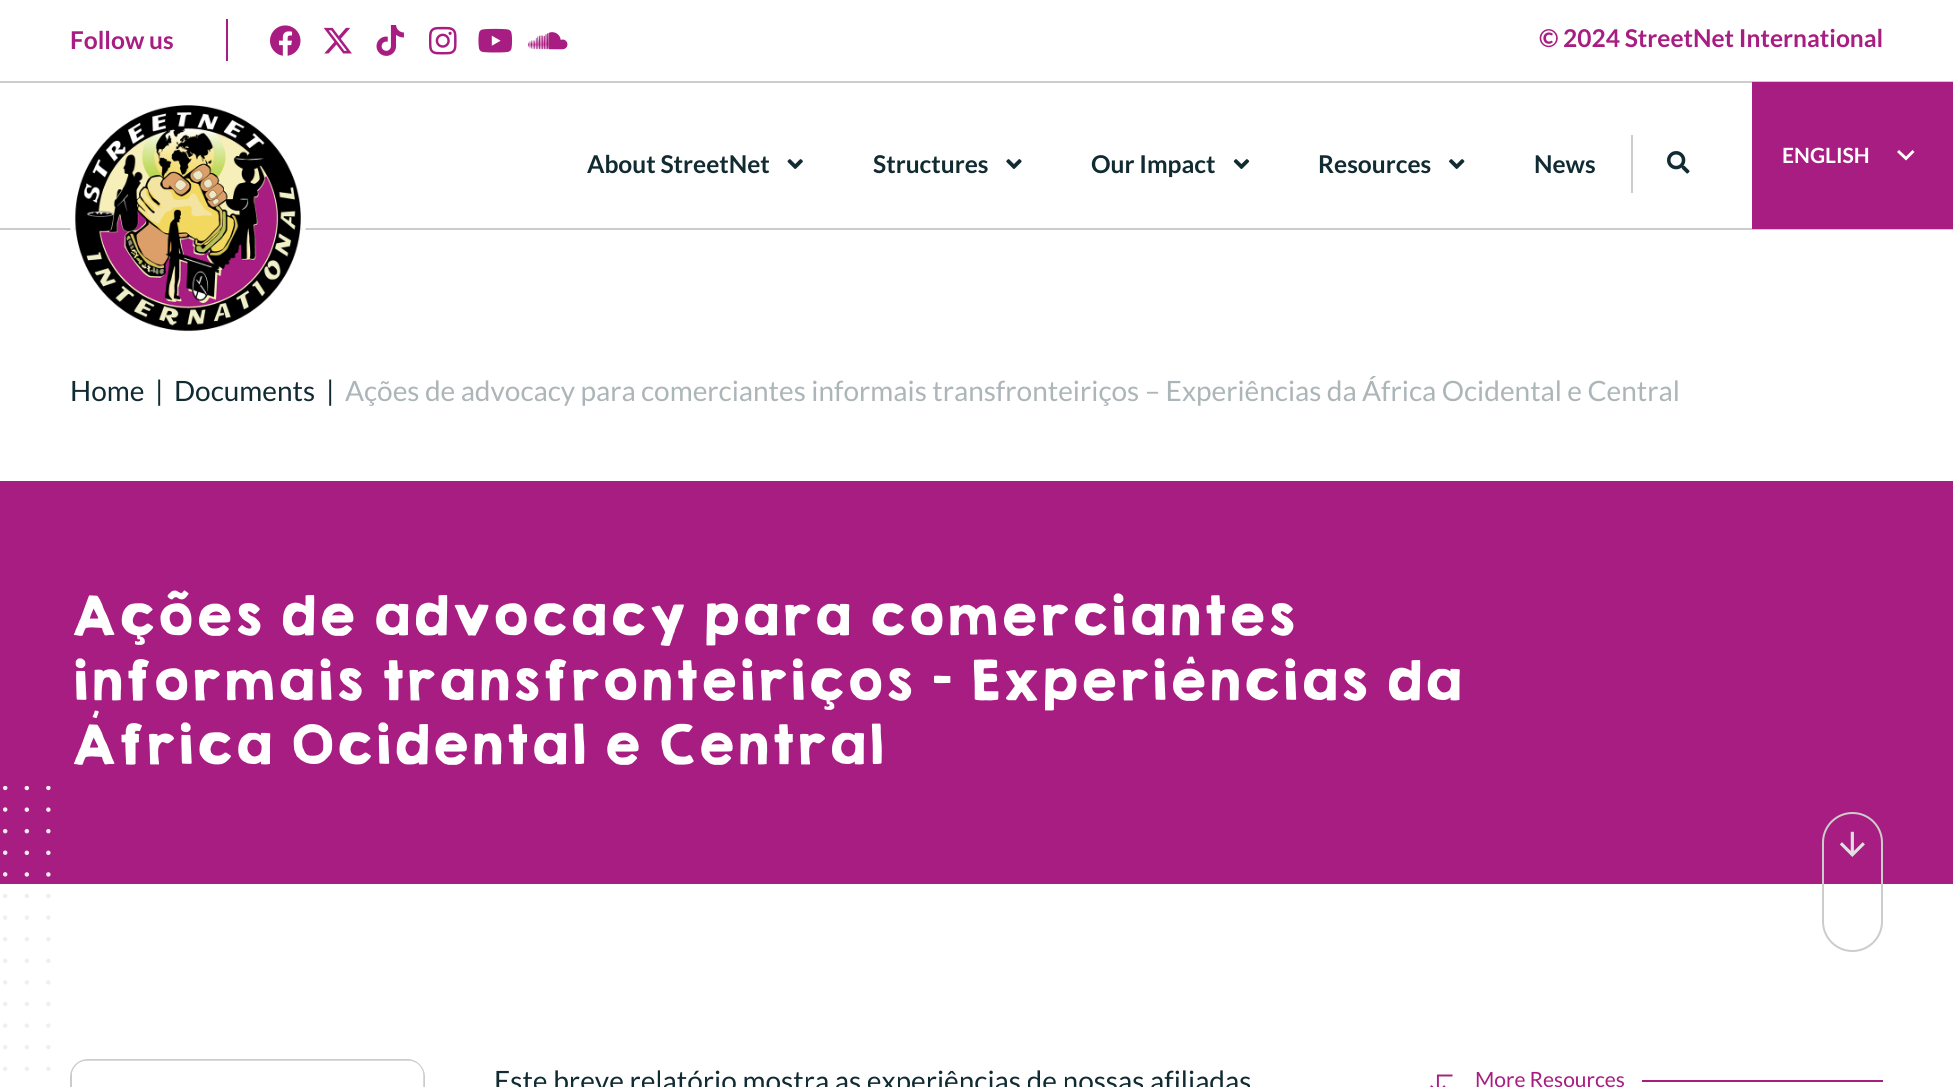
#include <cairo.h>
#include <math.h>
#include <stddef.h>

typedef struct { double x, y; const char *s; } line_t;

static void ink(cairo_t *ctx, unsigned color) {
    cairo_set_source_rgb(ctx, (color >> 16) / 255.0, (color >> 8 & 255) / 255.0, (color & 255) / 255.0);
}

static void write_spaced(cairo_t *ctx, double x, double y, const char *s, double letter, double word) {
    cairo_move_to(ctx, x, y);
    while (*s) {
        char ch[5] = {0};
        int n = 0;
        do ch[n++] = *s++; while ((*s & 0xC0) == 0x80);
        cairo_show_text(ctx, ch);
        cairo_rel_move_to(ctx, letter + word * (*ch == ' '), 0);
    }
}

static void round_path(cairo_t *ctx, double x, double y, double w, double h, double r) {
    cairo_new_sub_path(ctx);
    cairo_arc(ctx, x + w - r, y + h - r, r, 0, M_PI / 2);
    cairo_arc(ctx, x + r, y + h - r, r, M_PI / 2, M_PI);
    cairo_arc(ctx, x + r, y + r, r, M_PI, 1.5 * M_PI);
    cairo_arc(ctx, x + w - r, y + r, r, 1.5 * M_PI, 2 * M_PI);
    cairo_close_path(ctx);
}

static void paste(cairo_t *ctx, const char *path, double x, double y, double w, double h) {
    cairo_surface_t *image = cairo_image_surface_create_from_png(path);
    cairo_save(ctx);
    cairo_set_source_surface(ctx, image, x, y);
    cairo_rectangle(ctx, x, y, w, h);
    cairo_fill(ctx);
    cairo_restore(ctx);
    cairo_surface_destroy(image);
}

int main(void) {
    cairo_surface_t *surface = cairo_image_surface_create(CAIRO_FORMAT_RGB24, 1953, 1087);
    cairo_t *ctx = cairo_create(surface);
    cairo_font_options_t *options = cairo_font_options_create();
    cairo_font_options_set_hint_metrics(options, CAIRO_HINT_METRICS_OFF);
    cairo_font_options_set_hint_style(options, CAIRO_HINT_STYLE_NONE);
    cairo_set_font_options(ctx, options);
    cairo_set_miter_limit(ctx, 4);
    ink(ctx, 0xFFFFFF);
    cairo_paint(ctx);
    ink(ctx, 0xCCCCCC);
    cairo_rectangle(ctx, 0, 81, 1953, 2);
    cairo_fill(ctx);
    ink(ctx, 0xA81D81);
    cairo_rectangle(ctx, 226, 19, 2, 42);
    cairo_fill(ctx);
    cairo_select_font_face(ctx, "Lato", CAIRO_FONT_SLANT_NORMAL, CAIRO_FONT_WEIGHT_BOLD);
    cairo_set_font_size(ctx, 24.5);
    cairo_move_to(ctx, 70, 49);
    cairo_show_text(ctx, "Follow us");
    paste(ctx, "media/1.png", 270, 25, 31, 31);
    paste(ctx, "media/2.png", 323, 27, 29, 27);
    paste(ctx, "media/3.png", 376, 25, 28, 31);
    paste(ctx, "media/4.png", 428, 26, 29, 29);
    paste(ctx, "media/5.png", 478, 28, 35, 25);
    paste(ctx, "media/6.png", 528, 32, 40, 18);
    cairo_move_to(ctx, 1539, 47);
    cairo_show_text(ctx, "© 2024 StreetNet International");
    ink(ctx, 0xCCCCCC);
    cairo_rectangle(ctx, 0, 228, 1953, 2);
    cairo_fill(ctx);
    cairo_arc(ctx, 188, 218, 116, 0, 2 * M_PI);
    ink(ctx, 0xFFFFFF);
    cairo_set_line_width(ctx, 4);
    cairo_stroke(ctx);
    paste(ctx, "media/7.png", 74, 105, 227, 227);
    ink(ctx, 0x112B32);
    cairo_move_to(ctx, 587, 173);
    cairo_show_text(ctx, "About StreetNet");
    paste(ctx, "media/8.png", 787, 159, 16, 10);
    cairo_move_to(ctx, 873, 173);
    cairo_show_text(ctx, "Structures");
    paste(ctx, "media/9.png", 1006, 159, 16, 10);
    cairo_move_to(ctx, 1091, 173);
    cairo_show_text(ctx, "Our Impact");
    paste(ctx, "media/10.png", 1233, 159, 17, 10);
    cairo_move_to(ctx, 1318, 173);
    cairo_show_text(ctx, "Resources");
    paste(ctx, "media/11.png", 1449, 159, 16, 10);
    cairo_move_to(ctx, 1534, 173);
    cairo_show_text(ctx, "News");
    ink(ctx, 0xCCCCCC);
    cairo_rectangle(ctx, 1631, 135, 2, 58);
    cairo_fill(ctx);
    paste(ctx, "media/12.png", 1667, 151, 23, 23);
    ink(ctx, 0xA81D81);
    cairo_rectangle(ctx, 1752, 82, 201, 147);
    cairo_fill(ctx);
    cairo_set_font_size(ctx, 21);
    ink(ctx, 0xFFFFFF);
    cairo_move_to(ctx, 1782, 163);
    cairo_show_text(ctx, "ENGLISH");
    cairo_new_path(ctx);
    cairo_move_to(ctx, 1906, 160.5);
    cairo_line_to(ctx, 1897, 152);
    cairo_line_to(ctx, 1899, 150);
    cairo_line_to(ctx, 1906, 156.5);
    cairo_line_to(ctx, 1912.5, 150);
    cairo_line_to(ctx, 1914.5, 152);
    cairo_close_path(ctx);
    cairo_fill(ctx);
    cairo_select_font_face(ctx, "Lato", CAIRO_FONT_SLANT_NORMAL, CAIRO_FONT_WEIGHT_NORMAL);
    cairo_set_font_size(ctx, 28);
    ink(ctx, 0x112B32);
    {
        static const line_t items[] = {
            {70, 401, "Home"},
            {155, 401, "|"},
            {174, 401, "Documents"},
            {326, 401, "|"},
        };
        for (size_t i = 0; i < sizeof items / sizeof *items; i++) {
            cairo_move_to(ctx, items[i].x, items[i].y);
            cairo_show_text(ctx, items[i].s);
        }
    }
    ink(ctx, 0xACB5B8);
    cairo_move_to(ctx, 345, 401);
    cairo_show_text(ctx, "Ações de advocacy para comerciantes informais transfronteiriços – Experiências da África Ocidental e Central");
    ink(ctx, 0xA81D81);
    cairo_rectangle(ctx, 0, 481, 1953, 403);
    cairo_fill(ctx);
    cairo_select_font_face(ctx, "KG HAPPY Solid", CAIRO_FONT_SLANT_NORMAL, CAIRO_FONT_WEIGHT_NORMAL);
    cairo_set_font_size(ctx, 49);
    ink(ctx, 0xFFFFFF);
    {
        static const line_t items[] = {
            {70, 635, "Ações de advocacy para comerciantes"},
            {70, 700, "informais transfronteiriços – Experiências da"},
            {70, 764, "África Ocidental e Central"},
        };
        for (size_t i = 0; i < sizeof items / sizeof *items; i++) {
            cairo_move_to(ctx, items[i].x, items[i].y);
            cairo_show_text(ctx, items[i].s);
        }
    }
    round_path(ctx, 1823, 813, 59, 138, 29.5);
    ink(ctx, 0xCCCCCC);
    cairo_set_line_width(ctx, 2);
    cairo_stroke(ctx);
    paste(ctx, "media/13.png", 1839, 831, 26, 26);
    paste(ctx, "media/14.png", 3, 786, 48, 285);
    round_path(ctx, 71, 1060, 353, 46, 17);
    cairo_stroke(ctx);
    paste(ctx, "media/15.png", 72, 1060, 352, 27);
    cairo_select_font_face(ctx, "Lato", CAIRO_FONT_SLANT_NORMAL, CAIRO_FONT_WEIGHT_NORMAL);
    cairo_set_font_size(ctx, 28);
    ink(ctx, 0x112B32);
    write_spaced(ctx, 494, 1091, "Este breve relatório mostra as experiências de nossas afiliadas", 0, 0.25);
    paste(ctx, "media/16.png", 1430, 1074, 23, 13);
    cairo_set_font_size(ctx, 21);
    ink(ctx, 0xA81D81);
    cairo_move_to(ctx, 1475, 1087);
    cairo_show_text(ctx, "More Resources");
    cairo_rectangle(ctx, 1642, 1080, 241, 2);
    cairo_fill(ctx);
    cairo_surface_write_to_png(surface, "image.png");
    cairo_font_options_destroy(options);
    cairo_destroy(ctx);
    cairo_surface_destroy(surface);
    return 0;
}
